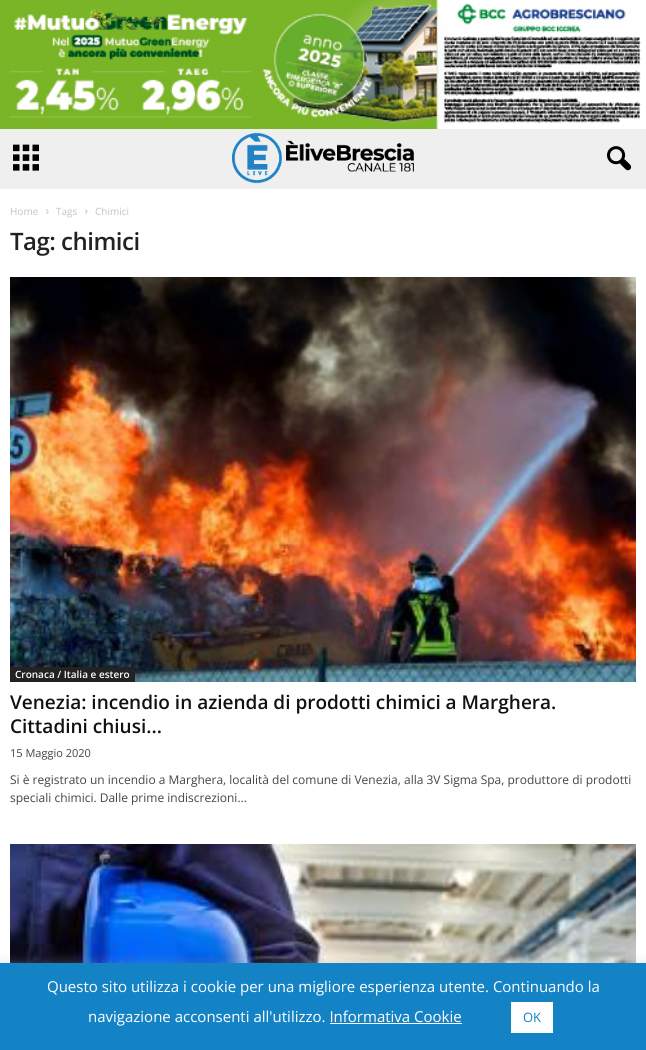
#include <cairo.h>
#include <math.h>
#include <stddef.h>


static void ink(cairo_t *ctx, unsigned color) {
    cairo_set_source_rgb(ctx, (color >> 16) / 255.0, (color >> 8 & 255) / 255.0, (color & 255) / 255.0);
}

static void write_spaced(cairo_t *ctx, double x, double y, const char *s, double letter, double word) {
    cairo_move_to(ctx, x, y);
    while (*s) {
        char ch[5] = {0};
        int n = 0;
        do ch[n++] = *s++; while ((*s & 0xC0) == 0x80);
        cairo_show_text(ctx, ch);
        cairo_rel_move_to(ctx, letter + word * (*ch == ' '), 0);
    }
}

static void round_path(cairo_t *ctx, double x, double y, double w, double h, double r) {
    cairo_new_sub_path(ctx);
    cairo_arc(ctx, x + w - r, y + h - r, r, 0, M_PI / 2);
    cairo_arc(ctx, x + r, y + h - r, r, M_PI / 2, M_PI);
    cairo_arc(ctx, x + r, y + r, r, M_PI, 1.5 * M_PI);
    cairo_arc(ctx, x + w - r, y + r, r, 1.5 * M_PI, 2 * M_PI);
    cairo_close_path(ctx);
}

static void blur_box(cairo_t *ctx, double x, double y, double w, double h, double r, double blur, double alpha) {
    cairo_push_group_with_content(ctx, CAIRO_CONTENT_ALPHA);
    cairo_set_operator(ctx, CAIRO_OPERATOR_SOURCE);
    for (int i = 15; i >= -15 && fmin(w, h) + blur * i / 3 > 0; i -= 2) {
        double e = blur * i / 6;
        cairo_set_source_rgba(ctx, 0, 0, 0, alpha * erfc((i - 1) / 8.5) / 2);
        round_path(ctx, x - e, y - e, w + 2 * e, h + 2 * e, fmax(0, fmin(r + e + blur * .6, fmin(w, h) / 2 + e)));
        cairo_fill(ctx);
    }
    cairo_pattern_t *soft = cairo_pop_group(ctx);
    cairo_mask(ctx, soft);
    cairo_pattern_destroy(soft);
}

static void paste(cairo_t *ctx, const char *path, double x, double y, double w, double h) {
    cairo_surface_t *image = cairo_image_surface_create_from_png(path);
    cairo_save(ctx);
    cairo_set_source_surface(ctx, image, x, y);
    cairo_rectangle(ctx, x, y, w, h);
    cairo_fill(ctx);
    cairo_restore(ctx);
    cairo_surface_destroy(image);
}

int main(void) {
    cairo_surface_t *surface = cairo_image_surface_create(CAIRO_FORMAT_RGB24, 646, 1050);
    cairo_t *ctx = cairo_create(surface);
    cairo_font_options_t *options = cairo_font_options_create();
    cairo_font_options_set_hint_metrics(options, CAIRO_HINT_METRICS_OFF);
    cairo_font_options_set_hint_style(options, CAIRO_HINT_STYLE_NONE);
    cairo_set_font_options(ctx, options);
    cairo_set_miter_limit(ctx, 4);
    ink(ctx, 0xFFFFFF);
    cairo_paint(ctx);
    paste(ctx, "media/1.png", 0, 0, 641, 129);
    ink(ctx, 0xEFEFEF);
    cairo_rectangle(ctx, 0, 129, 646, 60);
    cairo_fill(ctx);
    paste(ctx, "media/2.png", 13, 144, 26, 27);
    paste(ctx, "media/3.png", 232, 132, 182, 52);
    paste(ctx, "media/4.png", 607, 146, 25, 25);
    cairo_select_font_face(ctx, "Open Sans", CAIRO_FONT_SLANT_NORMAL, CAIRO_FONT_WEIGHT_NORMAL);
    cairo_set_font_size(ctx, 10);
    ink(ctx, 0xC3C3C3);
    cairo_move_to(ctx, 10, 215);
    cairo_show_text(ctx, "Home");
    paste(ctx, "media/5.png", 46, 209, 3, 5);
    cairo_move_to(ctx, 56, 215);
    cairo_show_text(ctx, "Tags");
    paste(ctx, "media/5.png", 85, 209, 3, 5);
    cairo_move_to(ctx, 95, 215);
    cairo_show_text(ctx, "Chimici");
    cairo_select_font_face(ctx, "Open Sans SemiBold", CAIRO_FONT_SLANT_NORMAL, CAIRO_FONT_WEIGHT_NORMAL);
    cairo_set_font_size(ctx, 24);
    ink(ctx, 0x222222);
    write_spaced(ctx, 10, 250, "Tag: chimici", -0.5, 0);
    paste(ctx, "media/6.png", 10, 277, 626, 405);
    cairo_new_path(ctx);
    cairo_move_to(ctx, 10, 667);
    cairo_line_to(ctx, 132, 667);
    cairo_curve_to(ctx, 133.5, 667, 135, 668.5, 135, 670);
    cairo_line_to(ctx, 135, 682);
    cairo_line_to(ctx, 10, 682);
    cairo_close_path(ctx);
    cairo_fill(ctx);
    cairo_set_font_size(ctx, 10);
    ink(ctx, 0xFFFFFF);
    cairo_move_to(ctx, 15, 678);
    cairo_show_text(ctx, "Cronaca / Italia e estero");
    cairo_set_font_size(ctx, 19);
    ink(ctx, 0x111111);
    cairo_move_to(ctx, 10, 709);
    cairo_show_text(ctx, "Venezia: incendio in azienda di prodotti chimici a Marghera.");
    cairo_move_to(ctx, 10, 733);
    cairo_show_text(ctx, "Cittadini chiusi...");
    cairo_select_font_face(ctx, "Open Sans", CAIRO_FONT_SLANT_NORMAL, CAIRO_FONT_WEIGHT_NORMAL);
    cairo_set_font_size(ctx, 11);
    ink(ctx, 0x444444);
    cairo_move_to(ctx, 10, 757);
    cairo_show_text(ctx, "15 Maggio 2020");
    cairo_set_font_size(ctx, 12);
    cairo_move_to(ctx, 10, 784);
    cairo_show_text(ctx, "Si è registrato un incendio a Marghera, località del comune di Venezia, alla 3V Sigma Spa, produttore di prodotti");
    cairo_move_to(ctx, 10, 802);
    cairo_show_text(ctx, "speciali chimici. Dalle prime indiscrezioni...");
    paste(ctx, "media/7.png", 10, 844, 626, 119);
    ink(ctx, 0xACABAB);
    blur_box(ctx, 0, 962, 646, 87, 0, 5, 0.3);
    ink(ctx, 0x1483C6);
    cairo_rectangle(ctx, 0, 963, 646, 87);
    cairo_fill(ctx);
    cairo_set_font_size(ctx, 15);
    ink(ctx, 0xFFFFFF);
    cairo_move_to(ctx, 47, 992);
    cairo_show_text(ctx, "Questo sito utilizza i cookie per una migliore esperienza utente. Continuando la");
    cairo_move_to(ctx, 88, 1022);
    cairo_show_text(ctx, "navigazione acconsenti all'utilizzo. Informativa Cookie");
    cairo_rectangle(ctx, 511, 1002, 42, 31);
    cairo_fill(ctx);
    cairo_set_font_size(ctx, 13);
    ink(ctx, 0x1483C6);
    cairo_move_to(ctx, 523, 1022);
    cairo_show_text(ctx, "OK");
    ink(ctx, 0xFFFFFF);
    cairo_rectangle(ctx, 330, 1023, 132, 1);
    cairo_fill(ctx);
    cairo_surface_write_to_png(surface, "image.png");
    cairo_font_options_destroy(options);
    cairo_destroy(ctx);
    cairo_surface_destroy(surface);
    return 0;
}
